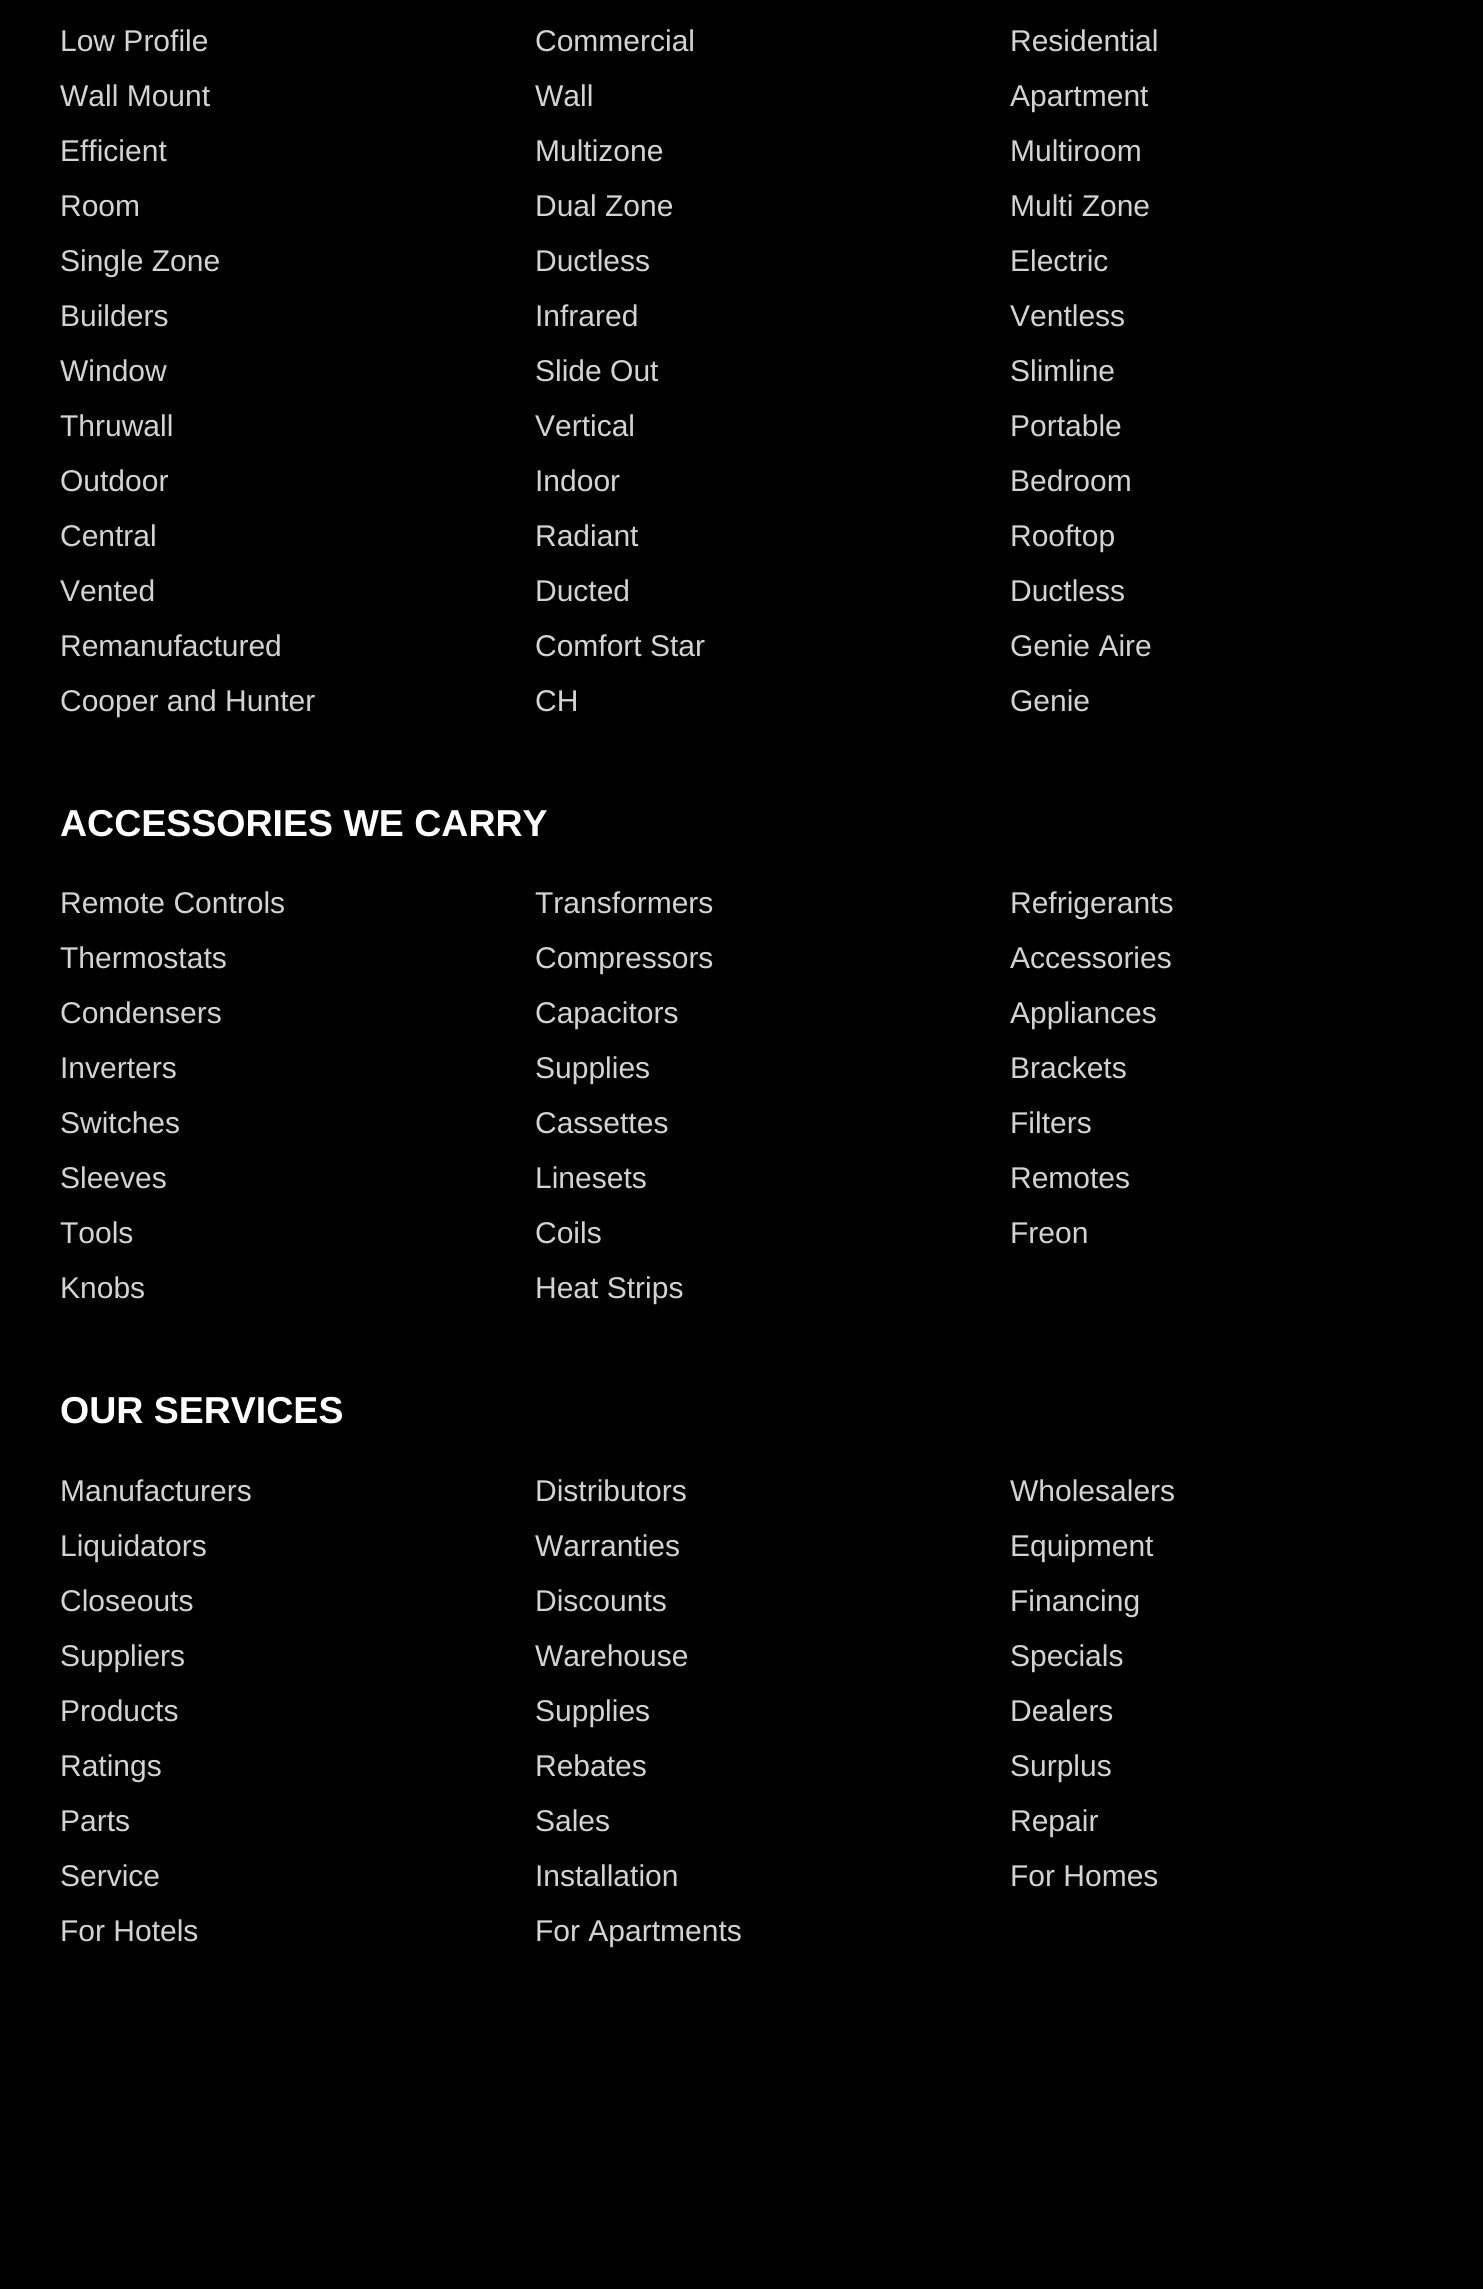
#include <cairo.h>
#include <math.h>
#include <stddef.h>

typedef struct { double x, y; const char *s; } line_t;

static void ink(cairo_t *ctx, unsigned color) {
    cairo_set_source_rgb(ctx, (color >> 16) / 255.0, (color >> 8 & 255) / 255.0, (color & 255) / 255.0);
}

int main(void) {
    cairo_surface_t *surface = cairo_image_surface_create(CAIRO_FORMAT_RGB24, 1483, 2289);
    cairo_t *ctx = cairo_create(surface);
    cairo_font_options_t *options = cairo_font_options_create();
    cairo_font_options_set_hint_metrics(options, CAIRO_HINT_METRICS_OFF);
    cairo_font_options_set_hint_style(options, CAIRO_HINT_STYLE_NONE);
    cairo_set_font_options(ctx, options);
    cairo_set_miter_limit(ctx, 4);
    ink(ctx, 0x000000);
    cairo_paint(ctx);
    cairo_select_font_face(ctx, "Liberation Sans", CAIRO_FONT_SLANT_NORMAL, CAIRO_FONT_WEIGHT_NORMAL);
    cairo_set_font_size(ctx, 30);
    ink(ctx, 0xD3D3D3);
    {
        static const line_t items[] = {
            {60, 51, "Low Profile"},
            {535, 51, "Commercial"},
            {1010, 51, "Residential"},
            {60, 106, "Wall Mount"},
            {535, 106, "Wall"},
            {1010, 106, "Apartment"},
            {60, 161, "Efficient"},
            {535, 161, "Multizone"},
            {1010, 161, "Multiroom"},
            {60, 216, "Room"},
            {535, 216, "Dual Zone"},
            {1010, 216, "Multi Zone"},
            {60, 271, "Single Zone"},
            {535, 271, "Ductless"},
            {1010, 271, "Electric"},
            {60, 326, "Builders"},
            {535, 326, "Infrared"},
            {1010, 326, "Ventless"},
            {60, 381, "Window"},
            {535, 381, "Slide Out"},
            {1010, 381, "Slimline"},
            {60, 436, "Thruwall"},
            {535, 436, "Vertical"},
            {1010, 436, "Portable"},
            {60, 491, "Outdoor"},
            {535, 491, "Indoor"},
            {1010, 491, "Bedroom"},
            {60, 546, "Central"},
            {535, 546, "Radiant"},
            {1010, 546, "Rooftop"},
            {60, 601, "Vented"},
            {535, 601, "Ducted"},
            {1010, 601, "Ductless"},
            {60, 656, "Remanufactured"},
            {535, 656, "Comfort Star"},
            {1010, 656, "Genie Aire"},
            {60, 711, "Cooper and Hunter"},
            {535, 711, "CH"},
            {1010, 711, "Genie"},
        };
        for (size_t i = 0; i < sizeof items / sizeof *items; i++) {
            cairo_move_to(ctx, items[i].x, items[i].y);
            cairo_show_text(ctx, items[i].s);
        }
    }
    cairo_select_font_face(ctx, "Liberation Sans", CAIRO_FONT_SLANT_NORMAL, CAIRO_FONT_WEIGHT_BOLD);
    cairo_set_font_size(ctx, 37.5);
    ink(ctx, 0xFFFFFF);
    cairo_move_to(ctx, 60, 836);
    cairo_show_text(ctx, "ACCESSORIES WE CARRY");
    cairo_select_font_face(ctx, "Liberation Sans", CAIRO_FONT_SLANT_NORMAL, CAIRO_FONT_WEIGHT_NORMAL);
    cairo_set_font_size(ctx, 30);
    ink(ctx, 0xD3D3D3);
    {
        static const line_t items[] = {
            {60, 913, "Remote Controls"},
            {535, 913, "Transformers"},
            {1010, 913, "Refrigerants"},
            {60, 968, "Thermostats"},
            {535, 968, "Compressors"},
            {1010, 968, "Accessories"},
            {60, 1023, "Condensers"},
            {535, 1023, "Capacitors"},
            {1010, 1023, "Appliances"},
            {60, 1078, "Inverters"},
            {535, 1078, "Supplies"},
            {1010, 1078, "Brackets"},
            {60, 1133, "Switches"},
            {535, 1133, "Cassettes"},
            {1010, 1133, "Filters"},
            {60, 1188, "Sleeves"},
            {535, 1188, "Linesets"},
            {1010, 1188, "Remotes"},
            {60, 1243, "Tools"},
            {535, 1243, "Coils"},
            {1010, 1243, "Freon"},
            {60, 1298, "Knobs"},
            {535, 1298, "Heat Strips"},
        };
        for (size_t i = 0; i < sizeof items / sizeof *items; i++) {
            cairo_move_to(ctx, items[i].x, items[i].y);
            cairo_show_text(ctx, items[i].s);
        }
    }
    cairo_select_font_face(ctx, "Liberation Sans", CAIRO_FONT_SLANT_NORMAL, CAIRO_FONT_WEIGHT_BOLD);
    cairo_set_font_size(ctx, 37.5);
    ink(ctx, 0xFFFFFF);
    cairo_move_to(ctx, 60, 1423);
    cairo_show_text(ctx, "OUR SERVICES");
    cairo_select_font_face(ctx, "Liberation Sans", CAIRO_FONT_SLANT_NORMAL, CAIRO_FONT_WEIGHT_NORMAL);
    cairo_set_font_size(ctx, 30);
    ink(ctx, 0xD3D3D3);
    {
        static const line_t items[] = {
            {60, 1501, "Manufacturers"},
            {535, 1501, "Distributors"},
            {1010, 1501, "Wholesalers"},
            {60, 1556, "Liquidators"},
            {535, 1556, "Warranties"},
            {1010, 1556, "Equipment"},
            {60, 1611, "Closeouts"},
            {535, 1611, "Discounts"},
            {1010, 1611, "Financing"},
            {60, 1666, "Suppliers"},
            {535, 1666, "Warehouse"},
            {1010, 1666, "Specials"},
            {60, 1721, "Products"},
            {535, 1721, "Supplies"},
            {1010, 1721, "Dealers"},
            {60, 1776, "Ratings"},
            {535, 1776, "Rebates"},
            {1010, 1776, "Surplus"},
            {60, 1831, "Parts"},
            {535, 1831, "Sales"},
            {1010, 1831, "Repair"},
            {60, 1886, "Service"},
            {535, 1886, "Installation"},
            {1010, 1886, "For Homes"},
            {60, 1941, "For Hotels"},
            {535, 1941, "For Apartments"},
        };
        for (size_t i = 0; i < sizeof items / sizeof *items; i++) {
            cairo_move_to(ctx, items[i].x, items[i].y);
            cairo_show_text(ctx, items[i].s);
        }
    }
    cairo_surface_write_to_png(surface, "image.png");
    cairo_font_options_destroy(options);
    cairo_destroy(ctx);
    cairo_surface_destroy(surface);
    return 0;
}
